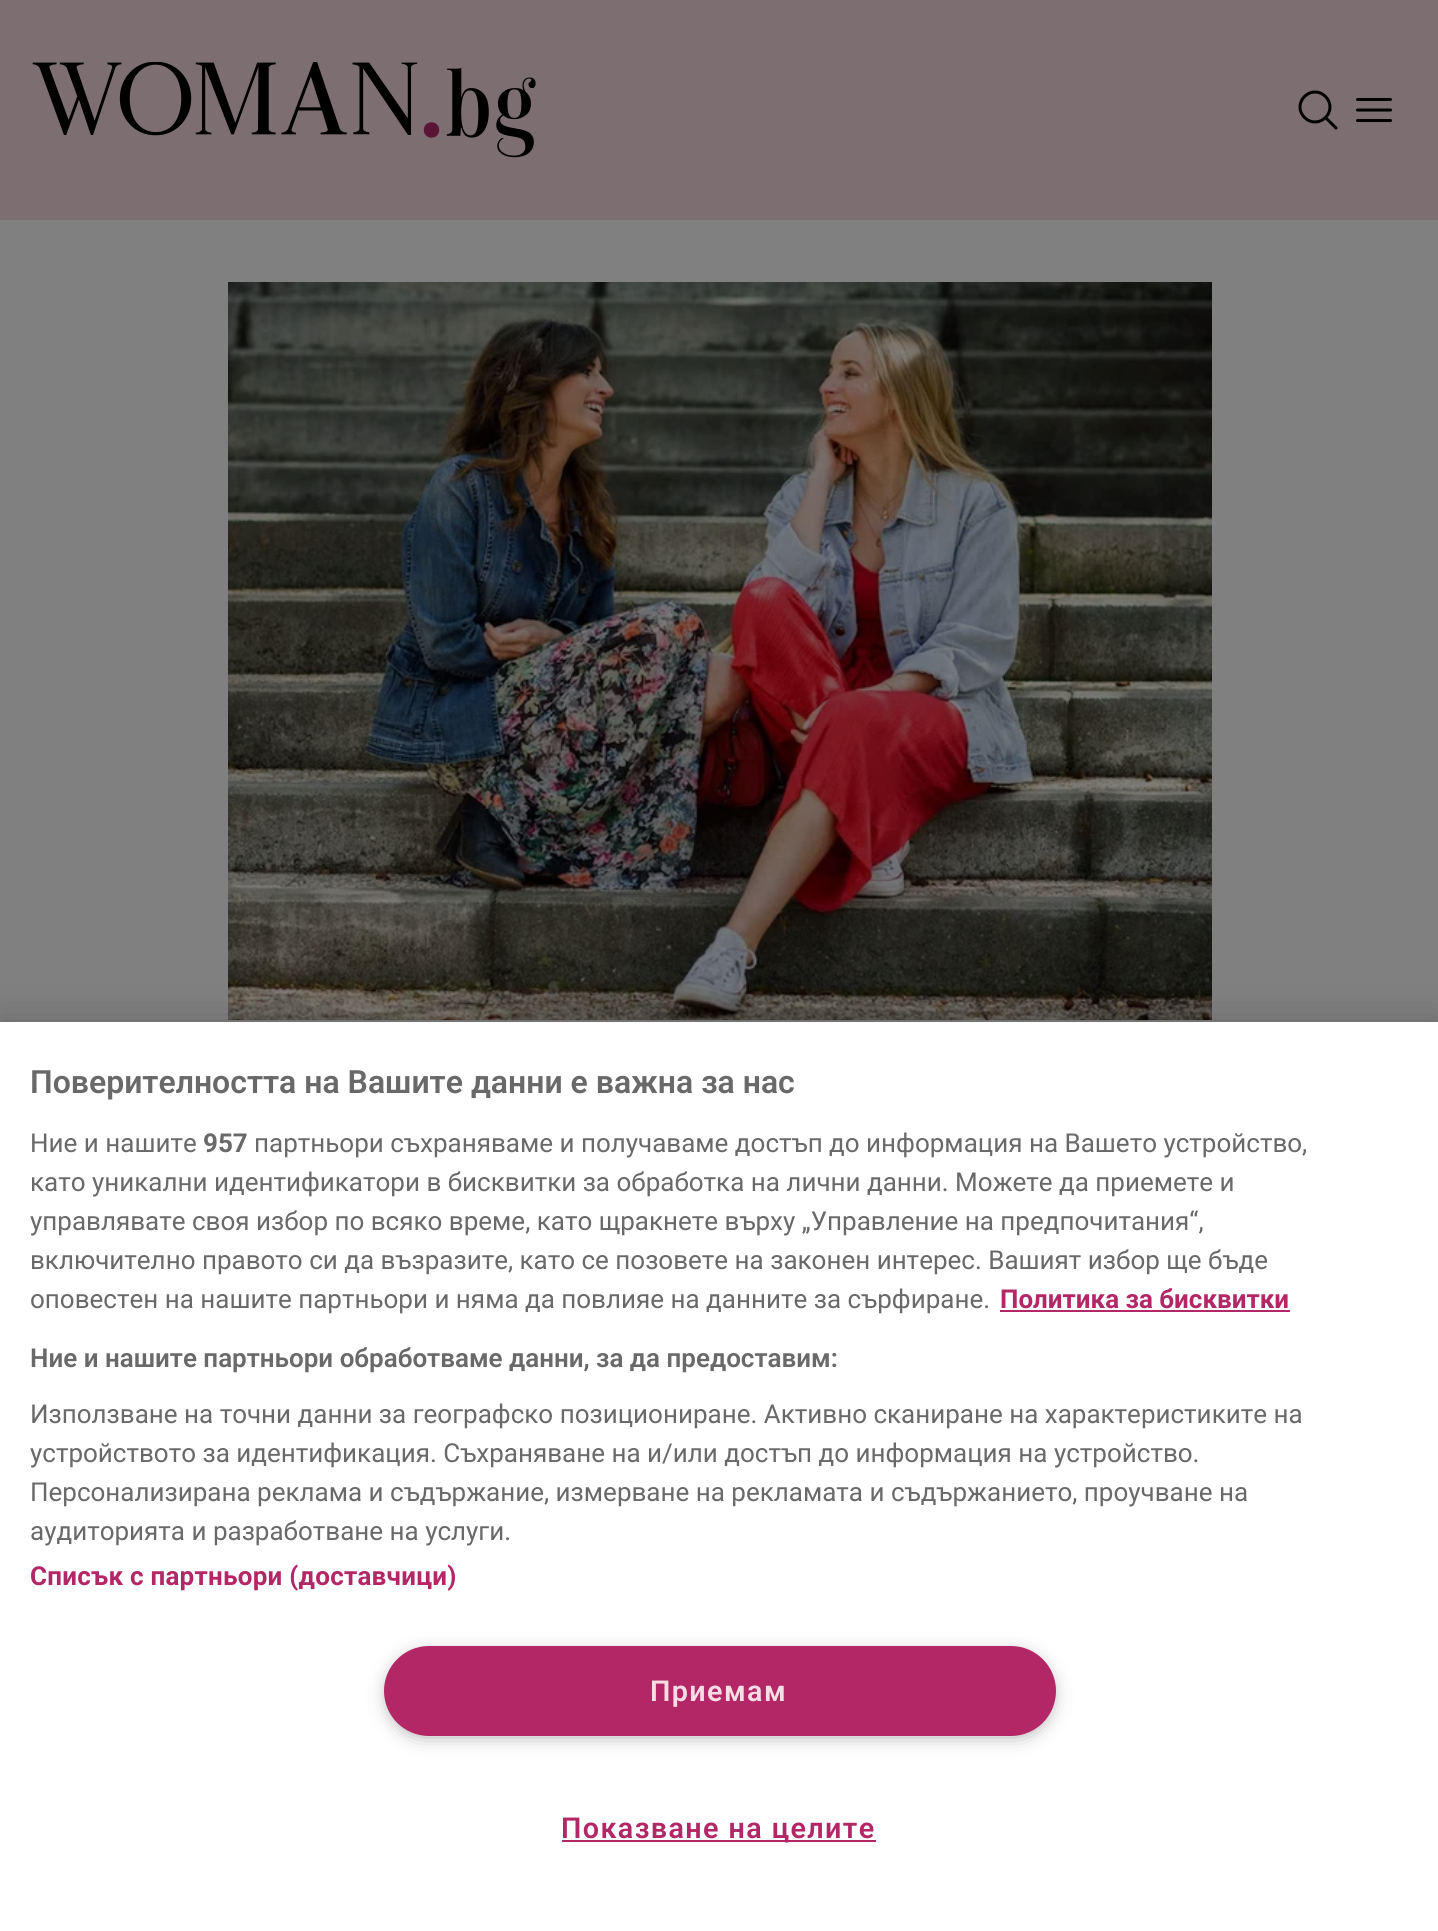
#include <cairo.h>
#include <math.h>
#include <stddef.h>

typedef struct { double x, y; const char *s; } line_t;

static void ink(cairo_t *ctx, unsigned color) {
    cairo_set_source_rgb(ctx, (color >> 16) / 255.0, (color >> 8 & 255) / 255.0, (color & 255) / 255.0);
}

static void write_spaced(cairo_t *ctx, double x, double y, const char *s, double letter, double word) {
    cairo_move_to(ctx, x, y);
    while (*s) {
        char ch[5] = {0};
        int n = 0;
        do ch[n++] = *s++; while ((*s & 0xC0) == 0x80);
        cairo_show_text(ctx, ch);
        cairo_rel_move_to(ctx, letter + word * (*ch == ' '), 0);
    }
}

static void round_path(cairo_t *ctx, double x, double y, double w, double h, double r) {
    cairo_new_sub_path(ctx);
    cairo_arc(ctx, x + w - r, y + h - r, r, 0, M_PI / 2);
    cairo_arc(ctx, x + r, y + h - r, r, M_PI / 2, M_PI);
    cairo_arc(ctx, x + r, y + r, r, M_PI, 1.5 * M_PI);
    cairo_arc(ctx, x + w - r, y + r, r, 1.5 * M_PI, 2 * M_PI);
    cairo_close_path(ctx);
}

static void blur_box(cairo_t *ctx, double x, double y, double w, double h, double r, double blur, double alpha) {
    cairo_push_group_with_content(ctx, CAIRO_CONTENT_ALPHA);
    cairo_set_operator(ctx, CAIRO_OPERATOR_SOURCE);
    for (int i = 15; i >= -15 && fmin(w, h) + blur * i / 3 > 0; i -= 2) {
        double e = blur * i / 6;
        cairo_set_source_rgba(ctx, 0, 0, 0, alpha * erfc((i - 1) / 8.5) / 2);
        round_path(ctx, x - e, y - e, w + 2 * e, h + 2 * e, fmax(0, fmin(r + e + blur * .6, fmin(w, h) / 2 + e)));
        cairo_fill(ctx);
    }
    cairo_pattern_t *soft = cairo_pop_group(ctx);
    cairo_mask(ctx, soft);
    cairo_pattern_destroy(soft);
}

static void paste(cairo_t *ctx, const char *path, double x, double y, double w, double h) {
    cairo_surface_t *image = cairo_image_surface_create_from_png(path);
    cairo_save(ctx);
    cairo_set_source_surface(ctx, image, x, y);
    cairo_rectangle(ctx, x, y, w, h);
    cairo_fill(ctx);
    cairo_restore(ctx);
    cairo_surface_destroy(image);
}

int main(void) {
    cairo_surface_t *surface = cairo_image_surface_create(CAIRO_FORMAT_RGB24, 1438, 1931);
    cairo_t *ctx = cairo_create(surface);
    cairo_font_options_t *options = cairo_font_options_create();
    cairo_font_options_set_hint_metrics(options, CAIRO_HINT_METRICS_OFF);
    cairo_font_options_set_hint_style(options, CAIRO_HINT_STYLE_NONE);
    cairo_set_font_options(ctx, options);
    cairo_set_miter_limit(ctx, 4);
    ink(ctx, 0x808080);
    cairo_paint(ctx);
    ink(ctx, 0x7D6E72);
    cairo_rectangle(ctx, 0, 0, 1438, 220);
    cairo_fill(ctx);
    paste(ctx, "media/1.png", 32, 62, 504, 96);
    cairo_new_path(ctx);
    cairo_move_to(ctx, 1336, 128);
    cairo_line_to(ctx, 1325.5, 117.5);
    cairo_move_to(ctx, 1325.5, 117.5);
    cairo_curve_to(ctx, 1331.5, 111.5, 1331.5, 102.5, 1325.5, 96.5);
    cairo_curve_to(ctx, 1319.5, 90.5, 1310.5, 90.5, 1304.5, 96.5);
    cairo_curve_to(ctx, 1298.5, 102.5, 1298.5, 111.5, 1304.5, 117.5);
    cairo_curve_to(ctx, 1310.5, 123.5, 1319.5, 123.5, 1325.5, 117.5);
    cairo_close_path(ctx);
    ink(ctx, 0x000000);
    cairo_set_line_width(ctx, 3);
    cairo_set_line_cap(ctx, CAIRO_LINE_CAP_ROUND);
    cairo_set_line_join(ctx, CAIRO_LINE_JOIN_ROUND);
    cairo_stroke(ctx);
    cairo_new_path(ctx);
    cairo_move_to(ctx, 1357.5, 99.5);
    cairo_line_to(ctx, 1390.5, 99.5);
    cairo_move_to(ctx, 1357.5, 110);
    cairo_line_to(ctx, 1390.5, 110);
    cairo_move_to(ctx, 1357.5, 120.5);
    cairo_line_to(ctx, 1390.5, 120.5);
    cairo_stroke(ctx);
    paste(ctx, "media/2.png", 228, 282, 984, 738);
    ink(ctx, 0x000000);
    blur_box(ctx, 0, 1022, 1438, 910, 0, 18, 0.2);
    ink(ctx, 0xFFFFFF);
    cairo_rectangle(ctx, 0, 1022, 1438, 909);
    cairo_fill(ctx);
    cairo_select_font_face(ctx, "Roboto SemiBold", CAIRO_FONT_SLANT_NORMAL, CAIRO_FONT_WEIGHT_NORMAL);
    cairo_set_font_size(ctx, 32);
    ink(ctx, 0x696969);
    cairo_move_to(ctx, 30, 1093);
    cairo_show_text(ctx, "Поверителността на Вашите данни е важна за нас");
    cairo_select_font_face(ctx, "Roboto", CAIRO_FONT_SLANT_NORMAL, CAIRO_FONT_WEIGHT_NORMAL);
    cairo_set_font_size(ctx, 26);
    cairo_move_to(ctx, 30, 1152);
    cairo_show_text(ctx, "Ние и нашите");
    cairo_select_font_face(ctx, "Roboto", CAIRO_FONT_SLANT_NORMAL, CAIRO_FONT_WEIGHT_BOLD);
    cairo_move_to(ctx, 203, 1152);
    cairo_show_text(ctx, "957");
    cairo_select_font_face(ctx, "Roboto", CAIRO_FONT_SLANT_NORMAL, CAIRO_FONT_WEIGHT_NORMAL);
    {
        static const line_t items[] = {
            {254, 1152, "партньори съхраняваме и получаваме достъп до информация на Вашето устройство,"},
            {30, 1191, "като уникални идентификатори в бисквитки за обработка на лични данни. Можете да приемете и"},
            {30, 1230, "управлявате своя избор по всяко време, като щракнете върху „Управление на предпочитания“,"},
            {30, 1269, "включително правото си да възразите, като се позовете на законен интерес. Вашият избор ще бъде"},
            {30, 1308, "оповестен на нашите партньори и няма да повлияе на данните за сърфиране."},
        };
        for (size_t i = 0; i < sizeof items / sizeof *items; i++) {
            cairo_move_to(ctx, items[i].x, items[i].y);
            cairo_show_text(ctx, items[i].s);
        }
    }
    cairo_select_font_face(ctx, "Roboto", CAIRO_FONT_SLANT_NORMAL, CAIRO_FONT_WEIGHT_BOLD);
    ink(ctx, 0xB32767);
    cairo_move_to(ctx, 1000, 1308);
    cairo_show_text(ctx, "Политика за бисквитки");
    cairo_rectangle(ctx, 1000, 1310, 290, 2);
    cairo_fill(ctx);
    cairo_select_font_face(ctx, "Roboto SemiBold", CAIRO_FONT_SLANT_NORMAL, CAIRO_FONT_WEIGHT_NORMAL);
    ink(ctx, 0x696969);
    cairo_move_to(ctx, 30, 1367);
    cairo_show_text(ctx, "Ние и нашите партньори обработваме данни, за да предоставим:");
    cairo_select_font_face(ctx, "Roboto", CAIRO_FONT_SLANT_NORMAL, CAIRO_FONT_WEIGHT_NORMAL);
    {
        static const line_t items[] = {
            {30, 1423, "Използване на точни данни за географско позициониране. Активно сканиране на характеристиките на"},
            {30, 1462, "устройството за идентификация. Съхраняване на и/или достъп до информация на устройство."},
            {30, 1501, "Персонализирана реклама и съдържание, измерване на рекламата и съдържанието, проучване на"},
            {30, 1540, "аудиторията и разработване на услуги."},
        };
        for (size_t i = 0; i < sizeof items / sizeof *items; i++) {
            cairo_move_to(ctx, items[i].x, items[i].y);
            cairo_show_text(ctx, items[i].s);
        }
    }
    cairo_select_font_face(ctx, "Roboto", CAIRO_FONT_SLANT_NORMAL, CAIRO_FONT_WEIGHT_BOLD);
    ink(ctx, 0xB32767);
    write_spaced(ctx, 30, 1585, "Списък с партньори (доставчици)", 0.25, 0);
    ink(ctx, 0x999999);
    blur_box(ctx, 390, 1656, 660, 78, 39, 10, 1);
    ink(ctx, 0xB32767);
    round_path(ctx, 385, 1647, 670, 88, 44);
    cairo_fill_preserve(ctx);
    cairo_set_line_width(ctx, 2);
    cairo_set_line_cap(ctx, CAIRO_LINE_CAP_BUTT);
    cairo_set_line_join(ctx, CAIRO_LINE_JOIN_MITER);
    cairo_stroke(ctx);
    cairo_select_font_face(ctx, "Roboto SemiBold", CAIRO_FONT_SLANT_NORMAL, CAIRO_FONT_WEIGHT_NORMAL);
    cairo_set_font_size(ctx, 28.75);
    ink(ctx, 0xFADCE4);
    write_spaced(ctx, 650, 1701, "Приемам", 1.4, 0);
    ink(ctx, 0xB32767);
    cairo_rectangle(ctx, 562, 1840, 314, 2);
    cairo_fill(ctx);
    write_spaced(ctx, 561, 1838, "Показване на целите", 1.4, 0);
    cairo_surface_write_to_png(surface, "image.png");
    cairo_font_options_destroy(options);
    cairo_destroy(ctx);
    cairo_surface_destroy(surface);
    return 0;
}
